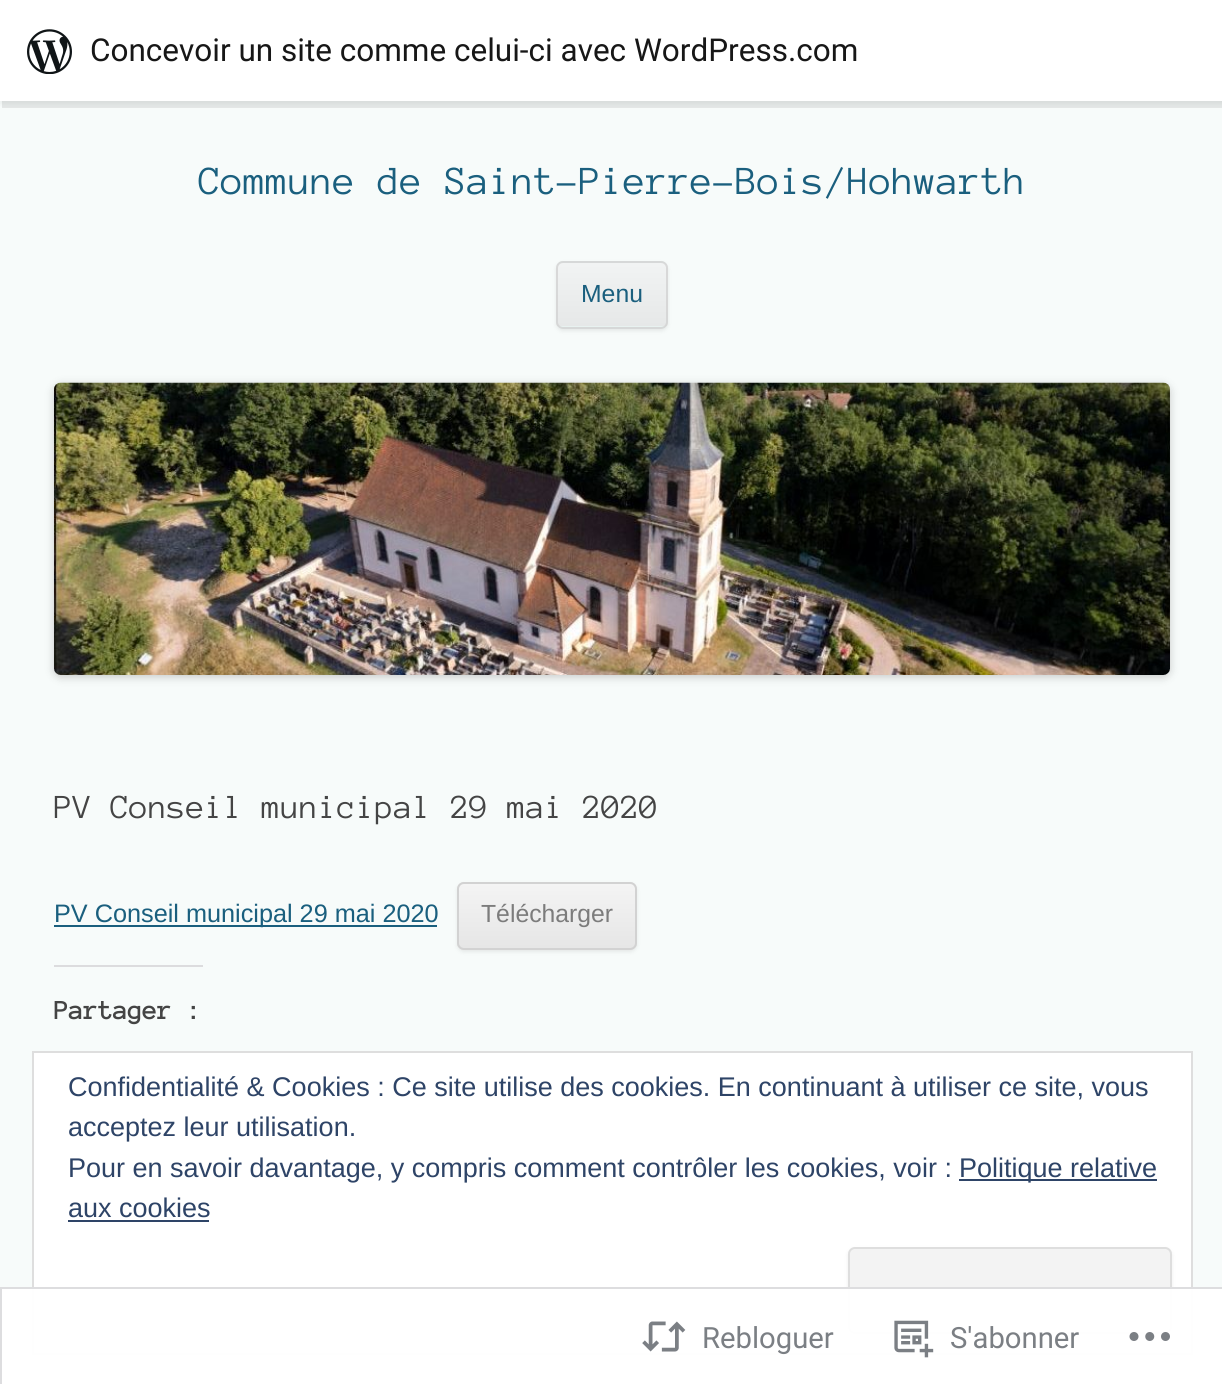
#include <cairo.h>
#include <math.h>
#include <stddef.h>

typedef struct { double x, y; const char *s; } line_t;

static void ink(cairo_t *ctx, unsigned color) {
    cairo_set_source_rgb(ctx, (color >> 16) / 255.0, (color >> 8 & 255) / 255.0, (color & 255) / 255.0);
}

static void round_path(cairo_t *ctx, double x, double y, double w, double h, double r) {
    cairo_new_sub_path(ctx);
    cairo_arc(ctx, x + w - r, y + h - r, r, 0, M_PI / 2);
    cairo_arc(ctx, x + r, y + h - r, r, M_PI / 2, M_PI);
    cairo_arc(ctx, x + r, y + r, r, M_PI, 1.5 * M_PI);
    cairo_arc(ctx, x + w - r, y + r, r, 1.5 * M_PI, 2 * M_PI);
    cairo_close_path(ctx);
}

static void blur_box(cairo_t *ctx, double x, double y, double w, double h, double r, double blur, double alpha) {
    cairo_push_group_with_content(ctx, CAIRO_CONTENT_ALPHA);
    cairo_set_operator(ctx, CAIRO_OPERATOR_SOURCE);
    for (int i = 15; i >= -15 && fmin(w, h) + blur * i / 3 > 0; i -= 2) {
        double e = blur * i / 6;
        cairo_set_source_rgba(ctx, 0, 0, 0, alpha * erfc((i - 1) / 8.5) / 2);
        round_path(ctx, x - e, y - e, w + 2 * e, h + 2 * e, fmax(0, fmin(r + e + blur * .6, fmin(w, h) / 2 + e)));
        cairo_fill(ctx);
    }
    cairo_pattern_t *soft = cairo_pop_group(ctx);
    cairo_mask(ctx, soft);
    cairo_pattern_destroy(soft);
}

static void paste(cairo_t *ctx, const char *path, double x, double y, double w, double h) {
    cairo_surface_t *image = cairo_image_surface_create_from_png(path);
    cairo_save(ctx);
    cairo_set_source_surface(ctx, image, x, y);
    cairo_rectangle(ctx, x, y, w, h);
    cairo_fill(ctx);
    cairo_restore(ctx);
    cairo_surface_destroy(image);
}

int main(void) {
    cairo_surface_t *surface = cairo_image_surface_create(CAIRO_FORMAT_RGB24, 1222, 1384);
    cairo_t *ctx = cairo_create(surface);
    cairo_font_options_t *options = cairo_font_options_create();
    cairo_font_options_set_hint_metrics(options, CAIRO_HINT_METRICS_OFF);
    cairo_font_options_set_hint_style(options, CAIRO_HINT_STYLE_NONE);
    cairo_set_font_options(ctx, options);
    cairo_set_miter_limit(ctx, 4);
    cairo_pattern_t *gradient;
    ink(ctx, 0xF7FBFA);
    cairo_paint(ctx);
    ink(ctx, 0x000000);
    blur_box(ctx, 0, 2, 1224, 102, 0, 2, 0.05);
    cairo_set_source_rgba(ctx, 0, 0, 0, 0.08);
    cairo_new_path(ctx);
    cairo_move_to(ctx, 2, 101);
    cairo_line_to(ctx, 2, 108);
    cairo_line_to(ctx, 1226, 108);
    cairo_line_to(ctx, 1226, 7);
    cairo_line_to(ctx, 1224, 7);
    cairo_line_to(ctx, 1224, 101);
    cairo_close_path(ctx);
    cairo_fill(ctx);
    ink(ctx, 0xFFFFFF);
    cairo_rectangle(ctx, 0, 0, 1222, 101);
    cairo_fill(ctx);
    paste(ctx, "media/1.png", 27, 29, 45, 45);
    cairo_select_font_face(ctx, "Roboto", CAIRO_FONT_SLANT_NORMAL, CAIRO_FONT_WEIGHT_NORMAL);
    cairo_set_font_size(ctx, 31.5);
    ink(ctx, 0x171717);
    cairo_move_to(ctx, 90, 61);
    cairo_show_text(ctx, "Concevoir un site comme celui-ci avec WordPress.com");
    cairo_select_font_face(ctx, "Anonymous Pro", CAIRO_FONT_SLANT_NORMAL, CAIRO_FONT_WEIGHT_NORMAL);
    cairo_set_font_size(ctx, 40.95);
    ink(ctx, 0x1A5F7E);
    cairo_move_to(ctx, 199, 194);
    cairo_show_text(ctx, "Commune de Saint-Pierre-Bois/Hohwarth");
    cairo_save(ctx);
    cairo_set_fill_rule(ctx, CAIRO_FILL_RULE_EVEN_ODD);
    cairo_new_path(ctx);
    cairo_move_to(ctx, 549, 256);
    cairo_line_to(ctx, 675, 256);
    cairo_line_to(ctx, 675, 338);
    cairo_line_to(ctx, 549, 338);
    cairo_close_path(ctx);
    cairo_move_to(ctx, 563, 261);
    cairo_line_to(ctx, 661, 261);
    cairo_curve_to(ctx, 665, 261, 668, 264, 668, 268);
    cairo_line_to(ctx, 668, 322);
    cairo_curve_to(ctx, 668, 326, 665, 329, 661, 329);
    cairo_line_to(ctx, 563, 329);
    cairo_curve_to(ctx, 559, 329, 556, 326, 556, 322);
    cairo_line_to(ctx, 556, 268);
    cairo_curve_to(ctx, 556, 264, 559, 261, 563, 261);
    cairo_close_path(ctx);
    cairo_clip(ctx);
    ink(ctx, 0x404040);
    blur_box(ctx, 556, 263, 112, 68, 7, 2, 0.1);
    cairo_restore(ctx);
    cairo_set_source_rgba(ctx, 0.388, 0.663, 0.6, 0.1);
    round_path(ctx, 556, 261, 112, 68, 7);
    cairo_fill(ctx);
    cairo_save(ctx);
    round_path(ctx, 556, 261, 112, 68, 7);
    cairo_clip(ctx);
    gradient = cairo_pattern_create_linear(612, 263, 612, 326);
    cairo_pattern_add_color_stop_rgba(gradient, 0, 0.957, 0.957, 0.957, 0.8);
    cairo_pattern_add_color_stop_rgba(gradient, 1, 0.902, 0.902, 0.902, 0.8);
    cairo_set_source(ctx, gradient);
    cairo_pattern_destroy(gradient);
    cairo_rectangle(ctx, 556, 263, 112, 63);
    cairo_fill(ctx);
    cairo_restore(ctx);
    round_path(ctx, 557, 262, 110, 66, 6);
    cairo_set_source_rgba(ctx, 0.824, 0.824, 0.824, 0.8);
    cairo_stroke(ctx);
    cairo_select_font_face(ctx, "Arimo", CAIRO_FONT_SLANT_NORMAL, CAIRO_FONT_WEIGHT_NORMAL);
    cairo_set_font_size(ctx, 24.75);
    ink(ctx, 0x1A5F7E);
    cairo_move_to(ctx, 581, 302);
    cairo_show_text(ctx, "Menu");
    ink(ctx, 0x000000);
    blur_box(ctx, 54, 385, 1116, 292, 7, 4.5, 0.2);
    paste(ctx, "media/2.png", 54, 382, 1116, 293);
    cairo_select_font_face(ctx, "Anonymous Pro", CAIRO_FONT_SLANT_NORMAL, CAIRO_FONT_WEIGHT_NORMAL);
    cairo_set_font_size(ctx, 34.6);
    ink(ctx, 0x444444);
    cairo_move_to(ctx, 54, 818);
    cairo_show_text(ctx, "PV Conseil municipal 29 mai 2020");
    ink(ctx, 0x1A5F7E);
    cairo_rectangle(ctx, 54, 925, 383, 2);
    cairo_fill(ctx);
    cairo_select_font_face(ctx, "Arimo", CAIRO_FONT_SLANT_NORMAL, CAIRO_FONT_WEIGHT_NORMAL);
    cairo_set_font_size(ctx, 25.25);
    cairo_move_to(ctx, 54, 922);
    cairo_show_text(ctx, "PV Conseil municipal 29 mai 2020");
    ink(ctx, 0x404040);
    blur_box(ctx, 457, 884, 180, 68, 7, 2, 0.1);
    ink(ctx, 0xE6E6E6);
    round_path(ctx, 457, 882, 180, 68, 7);
    cairo_fill(ctx);
    cairo_save(ctx);
    round_path(ctx, 457, 882, 180, 68, 7);
    cairo_clip(ctx);
    gradient = cairo_pattern_create_linear(547, 884, 547, 947);
    cairo_pattern_add_color_stop_rgba(gradient, 0, 0.957, 0.957, 0.957, 1);
    cairo_pattern_add_color_stop_rgba(gradient, 1, 0.902, 0.902, 0.902, 1);
    cairo_set_source(ctx, gradient);
    cairo_pattern_destroy(gradient);
    cairo_rectangle(ctx, 457, 884, 180, 63);
    cairo_fill(ctx);
    cairo_restore(ctx);
    round_path(ctx, 458, 883, 178, 66, 6);
    ink(ctx, 0xD2D2D2);
    cairo_stroke(ctx);
    cairo_set_font_size(ctx, 24.75);
    ink(ctx, 0x7C7C7C);
    cairo_move_to(ctx, 481, 922);
    cairo_show_text(ctx, "Télécharger");
    ink(ctx, 0xDCDCDE);
    cairo_rectangle(ctx, 54, 965, 149, 2);
    cairo_fill(ctx);
    cairo_select_font_face(ctx, "Anonymous Pro", CAIRO_FONT_SLANT_NORMAL, CAIRO_FONT_WEIGHT_BOLD);
    cairo_set_font_size(ctx, 27);
    ink(ctx, 0x444444);
    cairo_move_to(ctx, 54, 1019);
    cairo_show_text(ctx, "Partager :");
    ink(ctx, 0xFFFFFF);
    cairo_rectangle(ctx, 33, 1052, 1159, 302);
    cairo_fill_preserve(ctx);
    ink(ctx, 0xDEDEDE);
    cairo_stroke(ctx);
    cairo_select_font_face(ctx, "Arimo", CAIRO_FONT_SLANT_NORMAL, CAIRO_FONT_WEIGHT_NORMAL);
    ink(ctx, 0x2E4467);
    {
        static const line_t items[] = {
            {68, 1096, "Confidentialité & Cookies : Ce site utilise des cookies. En continuant à utiliser ce site, vous"},
            {68, 1136, "acceptez leur utilisation."},
            {68, 1177, "Pour en savoir davantage, y compris comment contrôler les cookies, voir :"},
        };
        for (size_t i = 0; i < sizeof items / sizeof *items; i++) {
            cairo_move_to(ctx, items[i].x, items[i].y);
            cairo_show_text(ctx, items[i].s);
        }
    }
    cairo_rectangle(ctx, 959, 1179, 198, 2);
    cairo_fill(ctx);
    cairo_move_to(ctx, 959, 1177);
    cairo_show_text(ctx, "Politique relative");
    cairo_move_to(ctx, 68, 1217);
    cairo_show_text(ctx, "aux cookies");
    cairo_rectangle(ctx, 68, 1220, 141, 2);
    cairo_fill(ctx);
    ink(ctx, 0x404040);
    blur_box(ctx, 848, 1249, 324, 88, 7, 2, 0.1);
    ink(ctx, 0xF3F3F3);
    round_path(ctx, 849, 1248, 322, 85, 6);
    cairo_fill_preserve(ctx);
    ink(ctx, 0xDEDEDE);
    cairo_stroke(ctx);
    cairo_set_source_rgba(ctx, 1, 1, 1, 0.98);
    cairo_rectangle(ctx, 0, 1287, 1222, 97);
    cairo_fill(ctx);
    cairo_rectangle(ctx, 1, 1288, 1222, 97);
    cairo_set_source_rgba(ctx, 0.863, 0.863, 0.871, 0.98);
    cairo_stroke(ctx);
    paste(ctx, "media/3.png", 642, 1321, 44, 31);
    cairo_select_font_face(ctx, "Roboto", CAIRO_FONT_SLANT_NORMAL, CAIRO_FONT_WEIGHT_NORMAL);
    cairo_set_font_size(ctx, 29.25);
    ink(ctx, 0x7B7F84);
    cairo_move_to(ctx, 702, 1348);
    cairo_show_text(ctx, "Rebloguer");
    paste(ctx, "media/4.png", 894, 1320, 40, 38);
    cairo_move_to(ctx, 950, 1348);
    cairo_show_text(ctx, "S'abonner");
    paste(ctx, "media/5.png", 1129, 1332, 41, 9);
    cairo_surface_write_to_png(surface, "image.png");
    cairo_font_options_destroy(options);
    cairo_destroy(ctx);
    cairo_surface_destroy(surface);
    return 0;
}
